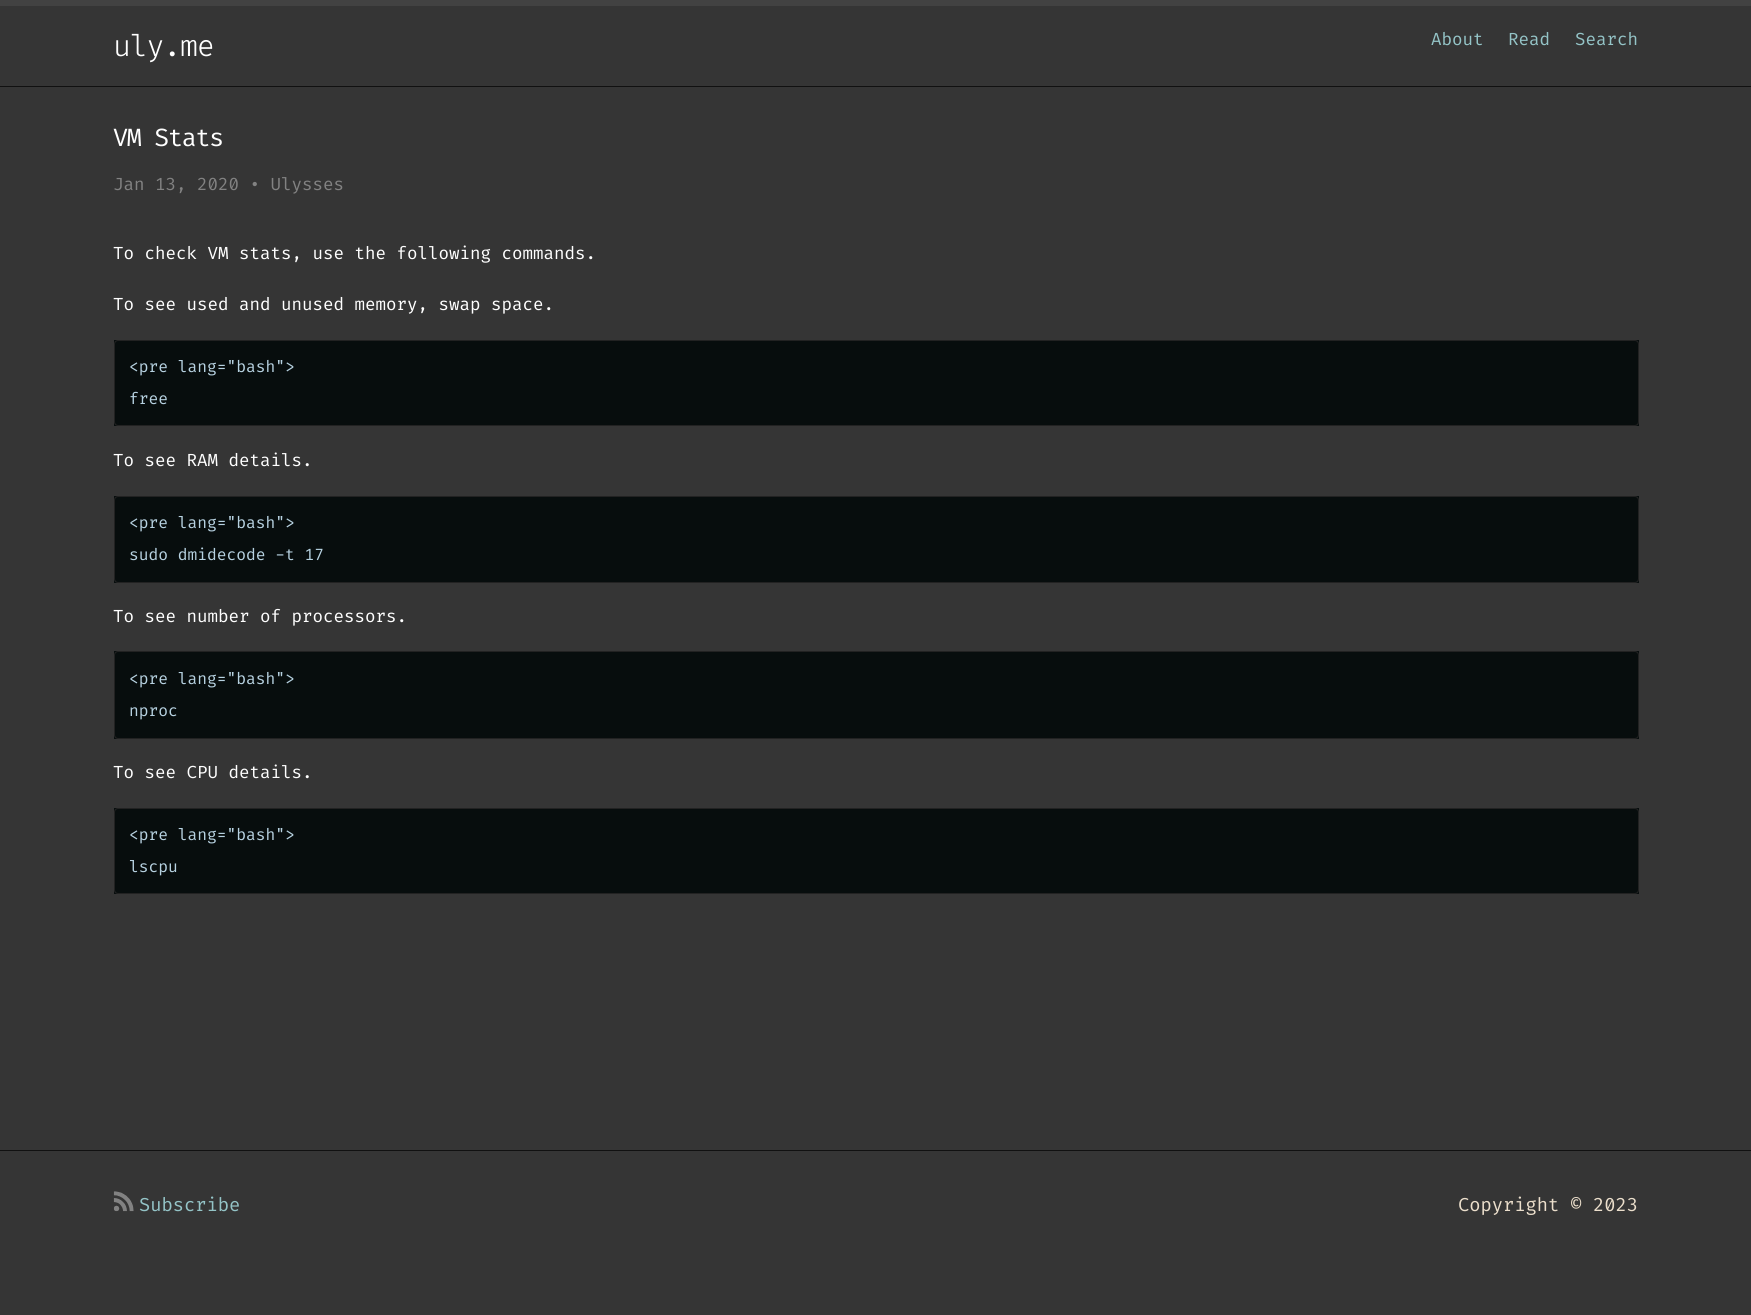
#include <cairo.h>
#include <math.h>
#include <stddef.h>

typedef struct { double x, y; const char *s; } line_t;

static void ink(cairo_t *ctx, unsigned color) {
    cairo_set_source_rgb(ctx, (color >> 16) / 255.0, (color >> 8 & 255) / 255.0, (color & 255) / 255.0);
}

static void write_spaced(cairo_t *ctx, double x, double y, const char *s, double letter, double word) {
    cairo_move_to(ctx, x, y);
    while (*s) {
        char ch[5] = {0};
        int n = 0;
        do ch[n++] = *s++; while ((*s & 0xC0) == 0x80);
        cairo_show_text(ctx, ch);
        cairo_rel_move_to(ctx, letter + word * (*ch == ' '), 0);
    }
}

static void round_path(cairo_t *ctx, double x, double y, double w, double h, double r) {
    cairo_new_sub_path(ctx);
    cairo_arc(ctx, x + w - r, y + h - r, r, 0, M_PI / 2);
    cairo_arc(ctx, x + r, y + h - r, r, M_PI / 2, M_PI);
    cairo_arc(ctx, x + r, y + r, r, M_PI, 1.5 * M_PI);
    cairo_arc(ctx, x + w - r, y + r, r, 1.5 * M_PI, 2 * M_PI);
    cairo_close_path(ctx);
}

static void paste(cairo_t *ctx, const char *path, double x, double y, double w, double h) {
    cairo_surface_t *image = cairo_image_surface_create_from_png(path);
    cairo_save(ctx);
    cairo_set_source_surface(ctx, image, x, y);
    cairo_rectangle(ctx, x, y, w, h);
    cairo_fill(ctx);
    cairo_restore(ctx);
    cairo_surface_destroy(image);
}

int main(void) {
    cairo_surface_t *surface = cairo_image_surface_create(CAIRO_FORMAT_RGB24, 1751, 1315);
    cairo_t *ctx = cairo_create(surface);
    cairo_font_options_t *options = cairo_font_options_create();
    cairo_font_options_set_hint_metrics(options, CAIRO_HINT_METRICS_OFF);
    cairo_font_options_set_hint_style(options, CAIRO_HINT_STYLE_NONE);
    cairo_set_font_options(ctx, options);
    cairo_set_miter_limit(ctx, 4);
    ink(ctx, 0x353535);
    cairo_paint(ctx);
    ink(ctx, 0x424242);
    cairo_rectangle(ctx, 0, 0, 1751, 6);
    cairo_fill(ctx);
    ink(ctx, 0x111111);
    cairo_rectangle(ctx, 0, 86, 1751, 1);
    cairo_fill(ctx);
    cairo_select_font_face(ctx, "Fira Code Light", CAIRO_FONT_SLANT_NORMAL, CAIRO_FONT_WEIGHT_NORMAL);
    cairo_set_font_size(ctx, 30);
    ink(ctx, 0xFFFFFF);
    write_spaced(ctx, 113, 56, "uly.me", -1.25, 0);
    cairo_select_font_face(ctx, "Fira Code", CAIRO_FONT_SLANT_NORMAL, CAIRO_FONT_WEIGHT_NORMAL);
    cairo_set_font_size(ctx, 17.5);
    ink(ctx, 0x94C4C7);
    {
        static const line_t items[] = {
            {1431, 45, "About"},
            {1508, 45, "Read"},
            {1575, 45, "Search"},
        };
        for (size_t i = 0; i < sizeof items / sizeof *items; i++) {
            cairo_move_to(ctx, items[i].x, items[i].y);
            cairo_show_text(ctx, items[i].s);
        }
    }
    cairo_set_font_size(ctx, 25);
    ink(ctx, 0xFFFFFF);
    write_spaced(ctx, 113, 146, "VM Stats", -1.25, 0);
    cairo_set_font_size(ctx, 17.5);
    ink(ctx, 0x828282);
    cairo_move_to(ctx, 113, 190);
    cairo_show_text(ctx, "Jan 13, 2020 • Ulysses");
    ink(ctx, 0xFFFFFF);
    cairo_move_to(ctx, 113, 259);
    cairo_show_text(ctx, "To check VM stats, use the following commands.");
    cairo_move_to(ctx, 113, 310);
    cairo_show_text(ctx, "To see used and unused memory, swap space.");
    ink(ctx, 0x070D0D);
    cairo_rectangle(ctx, 114, 340, 1525, 86);
    cairo_fill(ctx);
    round_path(ctx, 114.5, 340.5, 1524, 85, 3.5);
    ink(ctx, 0x222222);
    cairo_set_line_width(ctx, 1);
    cairo_stroke(ctx);
    cairo_set_font_size(ctx, 16.25);
    ink(ctx, 0xB7D2E1);
    cairo_move_to(ctx, 129, 372);
    cairo_show_text(ctx, "<pre lang=\"bash\">");
    cairo_move_to(ctx, 129, 404);
    cairo_show_text(ctx, "free");
    cairo_set_font_size(ctx, 17.5);
    ink(ctx, 0xFFFFFF);
    cairo_move_to(ctx, 113, 466);
    cairo_show_text(ctx, "To see RAM details.");
    ink(ctx, 0x070D0D);
    cairo_rectangle(ctx, 114, 496, 1525, 87);
    cairo_fill(ctx);
    round_path(ctx, 114.5, 496.5, 1524, 86, 3.5);
    ink(ctx, 0x222222);
    cairo_stroke(ctx);
    cairo_set_font_size(ctx, 16.25);
    ink(ctx, 0xB7D2E1);
    cairo_move_to(ctx, 129, 528);
    cairo_show_text(ctx, "<pre lang=\"bash\">");
    cairo_move_to(ctx, 129, 560);
    cairo_show_text(ctx, "sudo dmidecode -t 17");
    cairo_set_font_size(ctx, 17.5);
    ink(ctx, 0xFFFFFF);
    cairo_move_to(ctx, 113, 622);
    cairo_show_text(ctx, "To see number of processors.");
    ink(ctx, 0x070D0D);
    cairo_rectangle(ctx, 114, 651, 1525, 88);
    cairo_fill(ctx);
    round_path(ctx, 114.5, 651.5, 1524, 87, 3.5);
    ink(ctx, 0x222222);
    cairo_stroke(ctx);
    cairo_set_font_size(ctx, 16.25);
    ink(ctx, 0xB7D2E1);
    cairo_move_to(ctx, 129, 684);
    cairo_show_text(ctx, "<pre lang=\"bash\">");
    cairo_move_to(ctx, 129, 716);
    cairo_show_text(ctx, "nproc");
    cairo_set_font_size(ctx, 17.5);
    ink(ctx, 0xFFFFFF);
    cairo_move_to(ctx, 113, 778);
    cairo_show_text(ctx, "To see CPU details.");
    ink(ctx, 0x070D0D);
    cairo_rectangle(ctx, 114, 808, 1525, 86);
    cairo_fill(ctx);
    round_path(ctx, 114.5, 808.5, 1524, 85, 3.5);
    ink(ctx, 0x222222);
    cairo_stroke(ctx);
    cairo_set_font_size(ctx, 16.25);
    ink(ctx, 0xB7D2E1);
    cairo_move_to(ctx, 129, 840);
    cairo_show_text(ctx, "<pre lang=\"bash\">");
    cairo_move_to(ctx, 129, 872);
    cairo_show_text(ctx, "lscpu");
    ink(ctx, 0x111111);
    cairo_rectangle(ctx, 0, 1150, 1751, 1);
    cairo_fill(ctx);
    paste(ctx, "media/1.png", 113, 1191, 21, 21);
    cairo_set_font_size(ctx, 18.75);
    ink(ctx, 0x94C4C7);
    cairo_move_to(ctx, 139, 1211);
    cairo_show_text(ctx, "Subscribe");
    ink(ctx, 0xECDFCC);
    cairo_move_to(ctx, 1458, 1211);
    cairo_show_text(ctx, "Copyright © 2023");
    cairo_surface_write_to_png(surface, "image.png");
    cairo_font_options_destroy(options);
    cairo_destroy(ctx);
    cairo_surface_destroy(surface);
    return 0;
}
